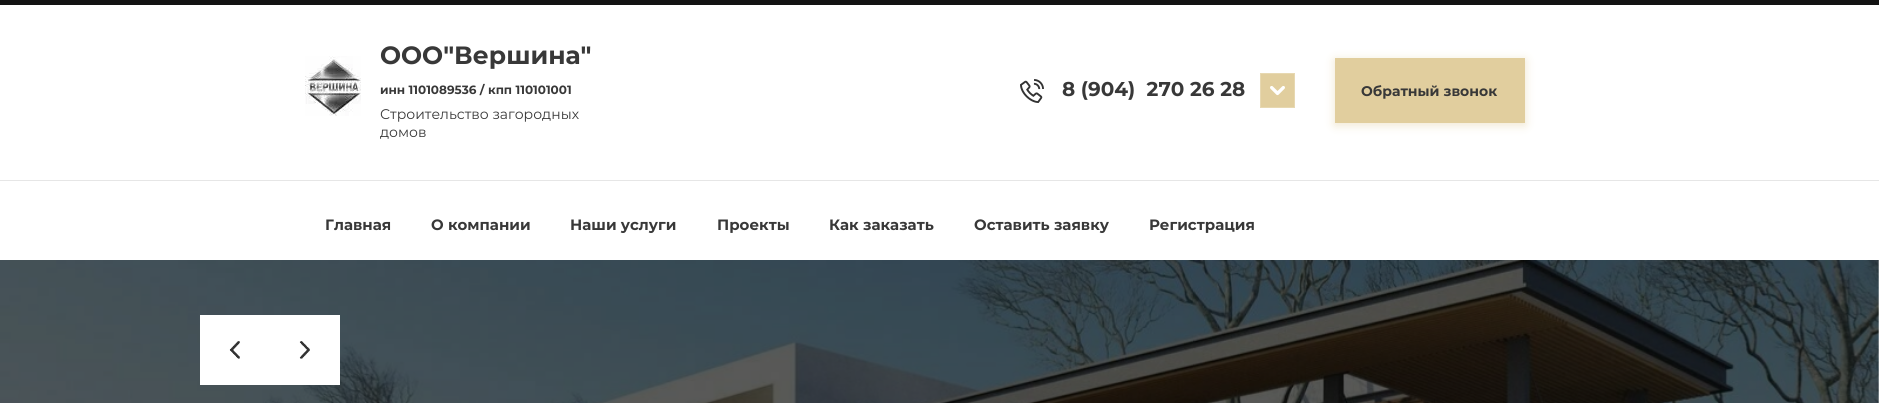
#include <cairo.h>
#include <math.h>
#include <stddef.h>

typedef struct { double x, y; const char *s; } line_t;

static void ink(cairo_t *ctx, unsigned color) {
    cairo_set_source_rgb(ctx, (color >> 16) / 255.0, (color >> 8 & 255) / 255.0, (color & 255) / 255.0);
}

static void round_path(cairo_t *ctx, double x, double y, double w, double h, double r) {
    cairo_new_sub_path(ctx);
    cairo_arc(ctx, x + w - r, y + h - r, r, 0, M_PI / 2);
    cairo_arc(ctx, x + r, y + h - r, r, M_PI / 2, M_PI);
    cairo_arc(ctx, x + r, y + r, r, M_PI, 1.5 * M_PI);
    cairo_arc(ctx, x + w - r, y + r, r, 1.5 * M_PI, 2 * M_PI);
    cairo_close_path(ctx);
}

static void blur_box(cairo_t *ctx, double x, double y, double w, double h, double r, double blur, double alpha) {
    cairo_push_group_with_content(ctx, CAIRO_CONTENT_ALPHA);
    cairo_set_operator(ctx, CAIRO_OPERATOR_SOURCE);
    for (int i = 15; i >= -15 && fmin(w, h) + blur * i / 3 > 0; i -= 2) {
        double e = blur * i / 6;
        cairo_set_source_rgba(ctx, 0, 0, 0, alpha * erfc((i - 1) / 8.5) / 2);
        round_path(ctx, x - e, y - e, w + 2 * e, h + 2 * e, fmax(0, fmin(r + e + blur * .6, fmin(w, h) / 2 + e)));
        cairo_fill(ctx);
    }
    cairo_pattern_t *soft = cairo_pop_group(ctx);
    cairo_mask(ctx, soft);
    cairo_pattern_destroy(soft);
}

static void paste(cairo_t *ctx, const char *path, double x, double y, double w, double h) {
    cairo_surface_t *image = cairo_image_surface_create_from_png(path);
    cairo_save(ctx);
    cairo_set_source_surface(ctx, image, x, y);
    cairo_rectangle(ctx, x, y, w, h);
    cairo_fill(ctx);
    cairo_restore(ctx);
    cairo_surface_destroy(image);
}

int main(void) {
    cairo_surface_t *surface = cairo_image_surface_create(CAIRO_FORMAT_RGB24, 1879, 403);
    cairo_t *ctx = cairo_create(surface);
    cairo_font_options_t *options = cairo_font_options_create();
    cairo_font_options_set_hint_metrics(options, CAIRO_HINT_METRICS_OFF);
    cairo_font_options_set_hint_style(options, CAIRO_HINT_STYLE_NONE);
    cairo_set_font_options(ctx, options);
    cairo_set_miter_limit(ctx, 4);
    ink(ctx, 0xFFFFFF);
    cairo_paint(ctx);
    ink(ctx, 0x131313);
    cairo_rectangle(ctx, 0, 0, 1879, 5);
    cairo_fill(ctx);
    ink(ctx, 0xE6E6E6);
    cairo_rectangle(ctx, 0, 180, 1879, 1);
    cairo_fill(ctx);
    paste(ctx, "media/1.png", 305, 56, 56, 60);
    cairo_select_font_face(ctx, "Montserrat", CAIRO_FONT_SLANT_NORMAL, CAIRO_FONT_WEIGHT_BOLD);
    cairo_set_font_size(ctx, 25);
    ink(ctx, 0x383838);
    cairo_move_to(ctx, 380, 64);
    cairo_show_text(ctx, "ООО\"Вершина\"");
    cairo_set_font_size(ctx, 12);
    cairo_move_to(ctx, 380, 94);
    cairo_show_text(ctx, "инн 1101089536 / кпп 110101001");
    cairo_select_font_face(ctx, "Montserrat", CAIRO_FONT_SLANT_NORMAL, CAIRO_FONT_WEIGHT_NORMAL);
    cairo_set_font_size(ctx, 14);
    cairo_move_to(ctx, 380, 119);
    cairo_show_text(ctx, "Строительство загородных");
    cairo_move_to(ctx, 380, 137);
    cairo_show_text(ctx, "домов");
    paste(ctx, "media/2.png", 1020, 79, 24, 24);
    cairo_select_font_face(ctx, "Montserrat", CAIRO_FONT_SLANT_NORMAL, CAIRO_FONT_WEIGHT_BOLD);
    cairo_set_font_size(ctx, 20);
    cairo_move_to(ctx, 1062, 96);
    cairo_show_text(ctx, "8 (904)  270 26 28");
    ink(ctx, 0xE1CE9E);
    cairo_rectangle(ctx, 1260.5, 73.5, 34, 34);
    cairo_fill_preserve(ctx);
    ink(ctx, 0xE7D8B1);
    cairo_set_line_width(ctx, 1);
    cairo_stroke(ctx);
    paste(ctx, "media/3.png", 1270, 86, 15, 10);
    ink(ctx, 0xE1CE9E);
    blur_box(ctx, 1335, 60, 190, 65, 0, 5, 0.5);
    ink(ctx, 0xE1CE9E);
    cairo_rectangle(ctx, 1335, 58, 190, 65);
    cairo_fill(ctx);
    cairo_set_font_size(ctx, 14);
    ink(ctx, 0x383838);
    cairo_move_to(ctx, 1361, 96);
    cairo_show_text(ctx, "Обратный звонок");
    cairo_set_font_size(ctx, 15);
    {
        static const line_t items[] = {
            {325, 230, "Главная"},
            {431, 230, "О компании"},
            {570, 230, "Наши услуги"},
            {717, 230, "Проекты"},
            {829, 230, "Как заказать"},
            {974, 230, "Оставить заявку"},
            {1149, 230, "Регистрация"},
        };
        for (size_t i = 0; i < sizeof items / sizeof *items; i++) {
            cairo_move_to(ctx, items[i].x, items[i].y);
            cairo_show_text(ctx, items[i].s);
        }
    }
    paste(ctx, "media/4.png", 0, 260, 1879, 143);
    ink(ctx, 0xFFFFFF);
    cairo_rectangle(ctx, 200, 315, 140, 70);
    cairo_fill(ctx);
    paste(ctx, "media/5.png", 229, 341, 11, 18);
    paste(ctx, "media/6.png", 299, 341, 11, 18);
    cairo_surface_write_to_png(surface, "image.png");
    cairo_font_options_destroy(options);
    cairo_destroy(ctx);
    cairo_surface_destroy(surface);
    return 0;
}
